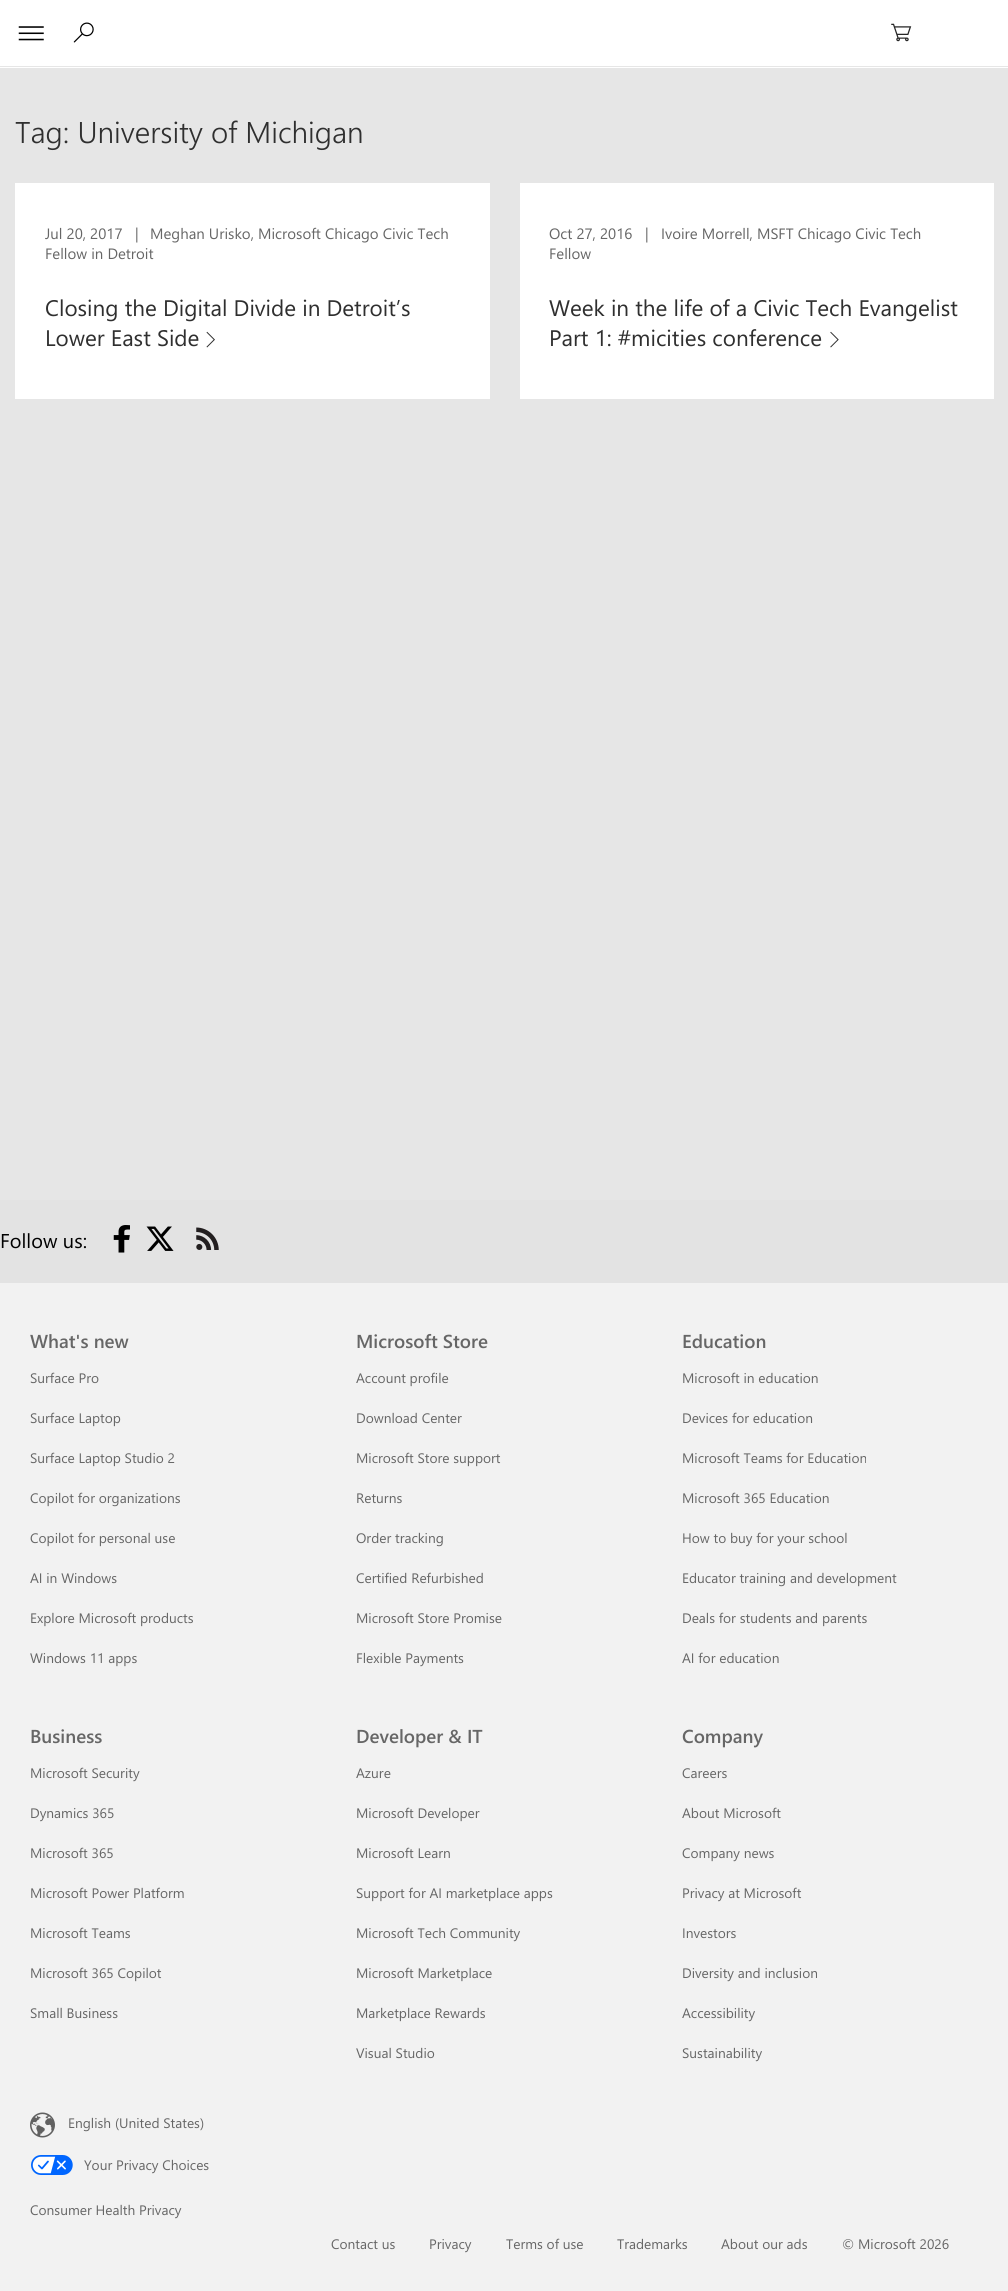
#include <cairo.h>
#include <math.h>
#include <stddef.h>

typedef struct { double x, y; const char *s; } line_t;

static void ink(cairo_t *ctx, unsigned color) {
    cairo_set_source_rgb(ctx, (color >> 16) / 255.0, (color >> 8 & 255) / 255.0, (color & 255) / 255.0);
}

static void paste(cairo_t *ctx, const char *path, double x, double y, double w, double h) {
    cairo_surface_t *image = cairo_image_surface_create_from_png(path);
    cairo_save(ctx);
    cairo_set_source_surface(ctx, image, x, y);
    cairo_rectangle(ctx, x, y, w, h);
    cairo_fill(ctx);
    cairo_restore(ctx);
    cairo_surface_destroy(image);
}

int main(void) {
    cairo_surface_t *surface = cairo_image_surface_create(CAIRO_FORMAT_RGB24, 1008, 2291);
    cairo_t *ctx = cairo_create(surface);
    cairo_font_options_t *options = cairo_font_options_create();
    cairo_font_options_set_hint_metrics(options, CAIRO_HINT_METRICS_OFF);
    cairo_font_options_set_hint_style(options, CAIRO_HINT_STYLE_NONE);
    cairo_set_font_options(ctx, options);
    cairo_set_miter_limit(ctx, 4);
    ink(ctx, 0xE6E6E6);
    cairo_paint(ctx);
    ink(ctx, 0xFFFFFF);
    cairo_rectangle(ctx, 0, 0, 1008, 68);
    cairo_fill(ctx);
    ink(ctx, 0xE6E6E6);
    cairo_rectangle(ctx, 0, 66, 1008, 1);
    cairo_fill(ctx);
    paste(ctx, "media/1.png", 18, 26, 26, 15);
    paste(ctx, "media/2.png", 73, 22, 21, 21);
    paste(ctx, "media/3.png", 891, 23, 21, 19);
    cairo_select_font_face(ctx, "Segoe UI Light", CAIRO_FONT_SLANT_NORMAL, CAIRO_FONT_WEIGHT_NORMAL);
    cairo_set_font_size(ctx, 30);
    ink(ctx, 0x2F2F2F);
    cairo_move_to(ctx, 15, 143);
    cairo_show_text(ctx, "Tag: University of Michigan");
    ink(ctx, 0xFFFFFF);
    cairo_rectangle(ctx, 15, 183, 475, 216);
    cairo_fill(ctx);
    cairo_select_font_face(ctx, "Segoe UI", CAIRO_FONT_SLANT_NORMAL, CAIRO_FONT_WEIGHT_NORMAL);
    cairo_set_font_size(ctx, 15);
    ink(ctx, 0x666666);
    {
        static const line_t items[] = {
            {45, 239, "Jul 20, 2017"},
            {135, 239, "|"},
            {150, 239, "Meghan Urisko, Microsoft Chicago Civic Tech"},
            {45, 259, "Fellow in Detroit"},
        };
        for (size_t i = 0; i < sizeof items / sizeof *items; i++) {
            cairo_move_to(ctx, items[i].x, items[i].y);
            cairo_show_text(ctx, items[i].s);
        }
    }
    cairo_set_font_size(ctx, 22.5);
    ink(ctx, 0x2F2F2F);
    cairo_move_to(ctx, 45, 316);
    cairo_show_text(ctx, "Closing the Digital Divide in Detroit’s");
    cairo_move_to(ctx, 45, 346);
    cairo_show_text(ctx, "Lower East Side");
    paste(ctx, "media/4.png", 206, 331, 9, 17);
    ink(ctx, 0xFFFFFF);
    cairo_rectangle(ctx, 520, 183, 474, 216);
    cairo_fill(ctx);
    cairo_set_font_size(ctx, 15);
    ink(ctx, 0x666666);
    {
        static const line_t items[] = {
            {549, 239, "Oct 27, 2016"},
            {645, 239, "|"},
            {661, 239, "Ivoire Morrell, MSFT Chicago Civic Tech"},
            {549, 259, "Fellow"},
        };
        for (size_t i = 0; i < sizeof items / sizeof *items; i++) {
            cairo_move_to(ctx, items[i].x, items[i].y);
            cairo_show_text(ctx, items[i].s);
        }
    }
    cairo_set_font_size(ctx, 22.5);
    ink(ctx, 0x2F2F2F);
    cairo_move_to(ctx, 549, 316);
    cairo_show_text(ctx, "Week in the life of a Civic Tech Evangelist");
    cairo_move_to(ctx, 549, 346);
    cairo_show_text(ctx, "Part 1: #micities conference");
    paste(ctx, "media/5.png", 830, 331, 9, 17);
    ink(ctx, 0xE3E3E3);
    cairo_rectangle(ctx, 0, 1200, 1008, 83);
    cairo_fill(ctx);
    cairo_set_font_size(ctx, 20);
    ink(ctx, 0x000000);
    cairo_move_to(ctx, 0, 1248);
    cairo_show_text(ctx, "Follow us:");
    paste(ctx, "media/6.png", 113, 1225, 17, 28);
    paste(ctx, "media/7.png", 146, 1226, 28, 25);
    paste(ctx, "media/8.png", 196, 1227, 23, 23);
    ink(ctx, 0xF2F2F2);
    cairo_rectangle(ctx, 0, 1283, 1008, 1008);
    cairo_fill(ctx);
    cairo_select_font_face(ctx, "Segoe UI SemiBold", CAIRO_FONT_SLANT_NORMAL, CAIRO_FONT_WEIGHT_NORMAL);
    cairo_set_font_size(ctx, 18.75);
    ink(ctx, 0x666666);
    cairo_move_to(ctx, 30, 1348);
    cairo_show_text(ctx, "What's new");
    cairo_select_font_face(ctx, "Segoe UI", CAIRO_FONT_SLANT_NORMAL, CAIRO_FONT_WEIGHT_NORMAL);
    cairo_set_font_size(ctx, 13.75);
    {
        static const line_t items[] = {
            {30, 1383, "Surface Pro"},
            {30, 1423, "Surface Laptop"},
            {30, 1463, "Surface Laptop Studio 2"},
            {30, 1503, "Copilot for organizations"},
            {30, 1543, "Copilot for personal use"},
            {30, 1583, "AI in Windows"},
            {30, 1623, "Explore Microsoft products"},
            {30, 1663, "Windows 11 apps"},
        };
        for (size_t i = 0; i < sizeof items / sizeof *items; i++) {
            cairo_move_to(ctx, items[i].x, items[i].y);
            cairo_show_text(ctx, items[i].s);
        }
    }
    cairo_select_font_face(ctx, "Segoe UI SemiBold", CAIRO_FONT_SLANT_NORMAL, CAIRO_FONT_WEIGHT_NORMAL);
    cairo_set_font_size(ctx, 18.75);
    cairo_move_to(ctx, 356, 1348);
    cairo_show_text(ctx, "Microsoft Store");
    cairo_select_font_face(ctx, "Segoe UI", CAIRO_FONT_SLANT_NORMAL, CAIRO_FONT_WEIGHT_NORMAL);
    cairo_set_font_size(ctx, 13.75);
    {
        static const line_t items[] = {
            {356, 1383, "Account profile"},
            {356, 1423, "Download Center"},
            {356, 1463, "Microsoft Store support"},
            {356, 1503, "Returns"},
            {356, 1543, "Order tracking"},
            {356, 1583, "Certified Refurbished"},
            {356, 1623, "Microsoft Store Promise"},
            {356, 1663, "Flexible Payments"},
        };
        for (size_t i = 0; i < sizeof items / sizeof *items; i++) {
            cairo_move_to(ctx, items[i].x, items[i].y);
            cairo_show_text(ctx, items[i].s);
        }
    }
    cairo_select_font_face(ctx, "Segoe UI SemiBold", CAIRO_FONT_SLANT_NORMAL, CAIRO_FONT_WEIGHT_NORMAL);
    cairo_set_font_size(ctx, 18.75);
    cairo_move_to(ctx, 682, 1348);
    cairo_show_text(ctx, "Education");
    cairo_select_font_face(ctx, "Segoe UI", CAIRO_FONT_SLANT_NORMAL, CAIRO_FONT_WEIGHT_NORMAL);
    cairo_set_font_size(ctx, 13.75);
    {
        static const line_t items[] = {
            {682, 1383, "Microsoft in education"},
            {682, 1423, "Devices for education"},
            {682, 1463, "Microsoft Teams for Education"},
            {682, 1503, "Microsoft 365 Education"},
            {682, 1543, "How to buy for your school"},
            {682, 1583, "Educator training and development"},
            {682, 1623, "Deals for students and parents"},
            {682, 1663, "AI for education"},
        };
        for (size_t i = 0; i < sizeof items / sizeof *items; i++) {
            cairo_move_to(ctx, items[i].x, items[i].y);
            cairo_show_text(ctx, items[i].s);
        }
    }
    cairo_select_font_face(ctx, "Segoe UI SemiBold", CAIRO_FONT_SLANT_NORMAL, CAIRO_FONT_WEIGHT_NORMAL);
    cairo_set_font_size(ctx, 18.75);
    cairo_move_to(ctx, 30, 1743);
    cairo_show_text(ctx, "Business");
    cairo_select_font_face(ctx, "Segoe UI", CAIRO_FONT_SLANT_NORMAL, CAIRO_FONT_WEIGHT_NORMAL);
    cairo_set_font_size(ctx, 13.75);
    {
        static const line_t items[] = {
            {30, 1778, "Microsoft Security"},
            {30, 1818, "Dynamics 365"},
            {30, 1858, "Microsoft 365"},
            {30, 1898, "Microsoft Power Platform"},
            {30, 1938, "Microsoft Teams"},
            {30, 1978, "Microsoft 365 Copilot"},
            {30, 2018, "Small Business"},
        };
        for (size_t i = 0; i < sizeof items / sizeof *items; i++) {
            cairo_move_to(ctx, items[i].x, items[i].y);
            cairo_show_text(ctx, items[i].s);
        }
    }
    cairo_select_font_face(ctx, "Segoe UI SemiBold", CAIRO_FONT_SLANT_NORMAL, CAIRO_FONT_WEIGHT_NORMAL);
    cairo_set_font_size(ctx, 18.75);
    cairo_move_to(ctx, 356, 1743);
    cairo_show_text(ctx, "Developer & IT");
    cairo_select_font_face(ctx, "Segoe UI", CAIRO_FONT_SLANT_NORMAL, CAIRO_FONT_WEIGHT_NORMAL);
    cairo_set_font_size(ctx, 13.75);
    {
        static const line_t items[] = {
            {356, 1778, "Azure"},
            {356, 1818, "Microsoft Developer"},
            {356, 1858, "Microsoft Learn"},
            {356, 1898, "Support for AI marketplace apps"},
            {356, 1938, "Microsoft Tech Community"},
            {356, 1978, "Microsoft Marketplace"},
            {356, 2018, "Marketplace Rewards"},
            {356, 2058, "Visual Studio"},
        };
        for (size_t i = 0; i < sizeof items / sizeof *items; i++) {
            cairo_move_to(ctx, items[i].x, items[i].y);
            cairo_show_text(ctx, items[i].s);
        }
    }
    cairo_select_font_face(ctx, "Segoe UI SemiBold", CAIRO_FONT_SLANT_NORMAL, CAIRO_FONT_WEIGHT_NORMAL);
    cairo_set_font_size(ctx, 18.75);
    cairo_move_to(ctx, 682, 1743);
    cairo_show_text(ctx, "Company");
    cairo_select_font_face(ctx, "Segoe UI", CAIRO_FONT_SLANT_NORMAL, CAIRO_FONT_WEIGHT_NORMAL);
    cairo_set_font_size(ctx, 13.75);
    {
        static const line_t items[] = {
            {682, 1778, "Careers"},
            {682, 1818, "About Microsoft"},
            {682, 1858, "Company news"},
            {682, 1898, "Privacy at Microsoft"},
            {682, 1938, "Investors"},
            {682, 1978, "Diversity and inclusion"},
            {682, 2018, "Accessibility"},
            {682, 2058, "Sustainability"},
        };
        for (size_t i = 0; i < sizeof items / sizeof *items; i++) {
            cairo_move_to(ctx, items[i].x, items[i].y);
            cairo_show_text(ctx, items[i].s);
        }
    }
    paste(ctx, "media/9.png", 30, 2112, 25, 26);
    cairo_move_to(ctx, 68, 2128);
    cairo_show_text(ctx, "English (United States)");
    paste(ctx, "media/10.png", 31, 2155, 42, 20);
    {
        static const line_t items[] = {
            {84, 2170, "Your Privacy Choices"},
            {30, 2215, "Consumer Health Privacy"},
            {331, 2249, "Contact us"},
            {429, 2249, "Privacy"},
            {506, 2249, "Terms of use"},
            {617, 2249, "Trademarks"},
            {721, 2249, "About our ads"},
            {842, 2249, "© Microsoft 2026"},
        };
        for (size_t i = 0; i < sizeof items / sizeof *items; i++) {
            cairo_move_to(ctx, items[i].x, items[i].y);
            cairo_show_text(ctx, items[i].s);
        }
    }
    cairo_surface_write_to_png(surface, "image.png");
    cairo_font_options_destroy(options);
    cairo_destroy(ctx);
    cairo_surface_destroy(surface);
    return 0;
}
